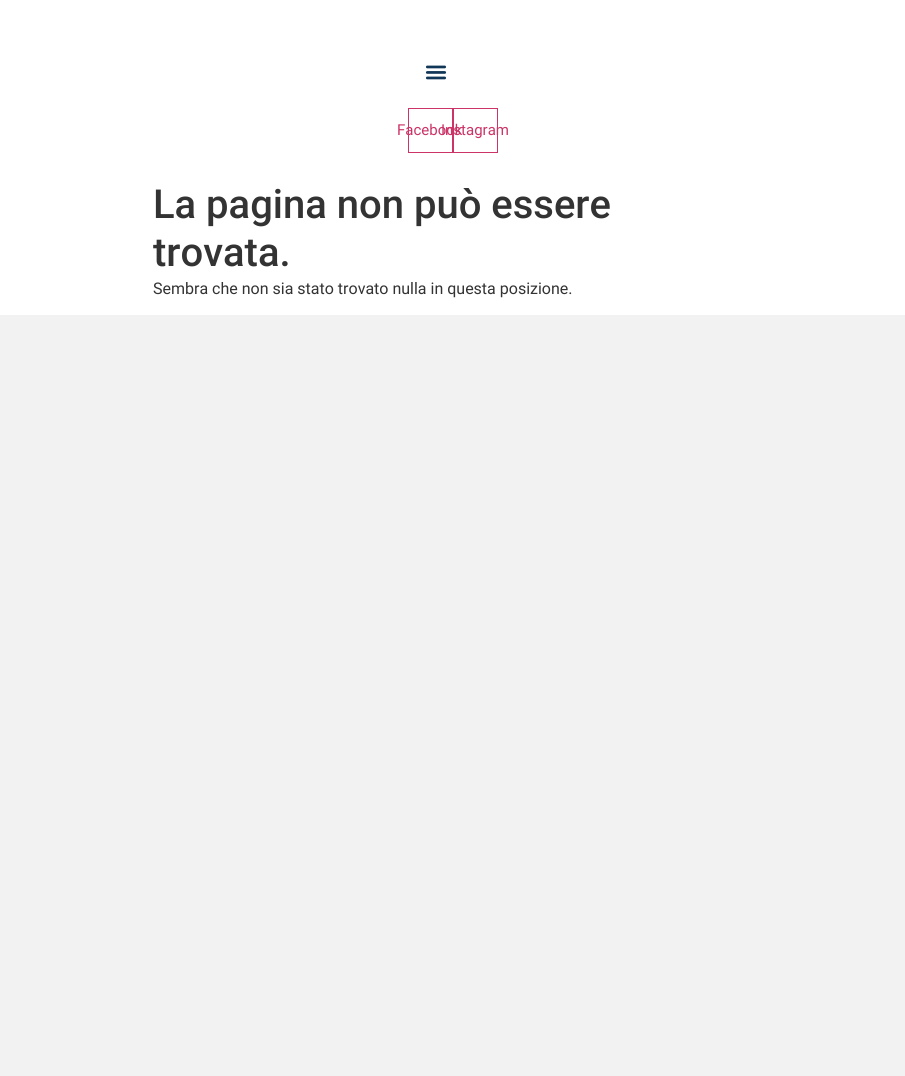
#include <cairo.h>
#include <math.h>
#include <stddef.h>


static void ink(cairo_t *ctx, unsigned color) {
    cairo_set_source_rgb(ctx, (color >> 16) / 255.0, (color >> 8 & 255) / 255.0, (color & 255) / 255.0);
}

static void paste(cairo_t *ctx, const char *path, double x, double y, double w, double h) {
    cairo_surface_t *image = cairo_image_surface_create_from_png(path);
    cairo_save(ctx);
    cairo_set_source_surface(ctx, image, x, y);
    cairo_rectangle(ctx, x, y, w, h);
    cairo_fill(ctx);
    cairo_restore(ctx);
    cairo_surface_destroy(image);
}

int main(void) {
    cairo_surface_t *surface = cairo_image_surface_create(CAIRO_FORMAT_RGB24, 905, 1076);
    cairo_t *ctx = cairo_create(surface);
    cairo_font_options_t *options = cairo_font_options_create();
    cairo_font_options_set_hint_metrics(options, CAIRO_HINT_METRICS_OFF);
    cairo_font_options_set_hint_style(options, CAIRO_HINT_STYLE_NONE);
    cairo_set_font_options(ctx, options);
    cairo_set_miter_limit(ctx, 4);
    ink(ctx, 0xFFFFFF);
    cairo_paint(ctx);
    paste(ctx, "media/1.png", 425, 65, 22, 15);
    cairo_rectangle(ctx, 408.5, 108.5, 44, 44);
    ink(ctx, 0xCC3366);
    cairo_set_line_width(ctx, 1);
    cairo_stroke(ctx);
    cairo_select_font_face(ctx, "Roboto", CAIRO_FONT_SLANT_NORMAL, CAIRO_FONT_WEIGHT_NORMAL);
    cairo_set_font_size(ctx, 15);
    cairo_move_to(ctx, 397, 135);
    cairo_show_text(ctx, "Facebook");
    cairo_rectangle(ctx, 453.5, 108.5, 44, 44);
    cairo_stroke(ctx);
    cairo_move_to(ctx, 441, 135);
    cairo_show_text(ctx, "Instagram");
    cairo_select_font_face(ctx, "Roboto Medium", CAIRO_FONT_SLANT_NORMAL, CAIRO_FONT_WEIGHT_NORMAL);
    cairo_set_font_size(ctx, 40);
    ink(ctx, 0x333333);
    cairo_move_to(ctx, 153, 218);
    cairo_show_text(ctx, "La pagina non può essere");
    cairo_move_to(ctx, 153, 266);
    cairo_show_text(ctx, "trovata.");
    cairo_select_font_face(ctx, "Roboto", CAIRO_FONT_SLANT_NORMAL, CAIRO_FONT_WEIGHT_NORMAL);
    cairo_set_font_size(ctx, 16);
    cairo_move_to(ctx, 153, 294);
    cairo_show_text(ctx, "Sembra che non sia stato trovato nulla in questa posizione.");
    ink(ctx, 0xF2F2F2);
    cairo_rectangle(ctx, 0, 315, 905, 761);
    cairo_fill(ctx);
    cairo_surface_write_to_png(surface, "image.png");
    cairo_font_options_destroy(options);
    cairo_destroy(ctx);
    cairo_surface_destroy(surface);
    return 0;
}
